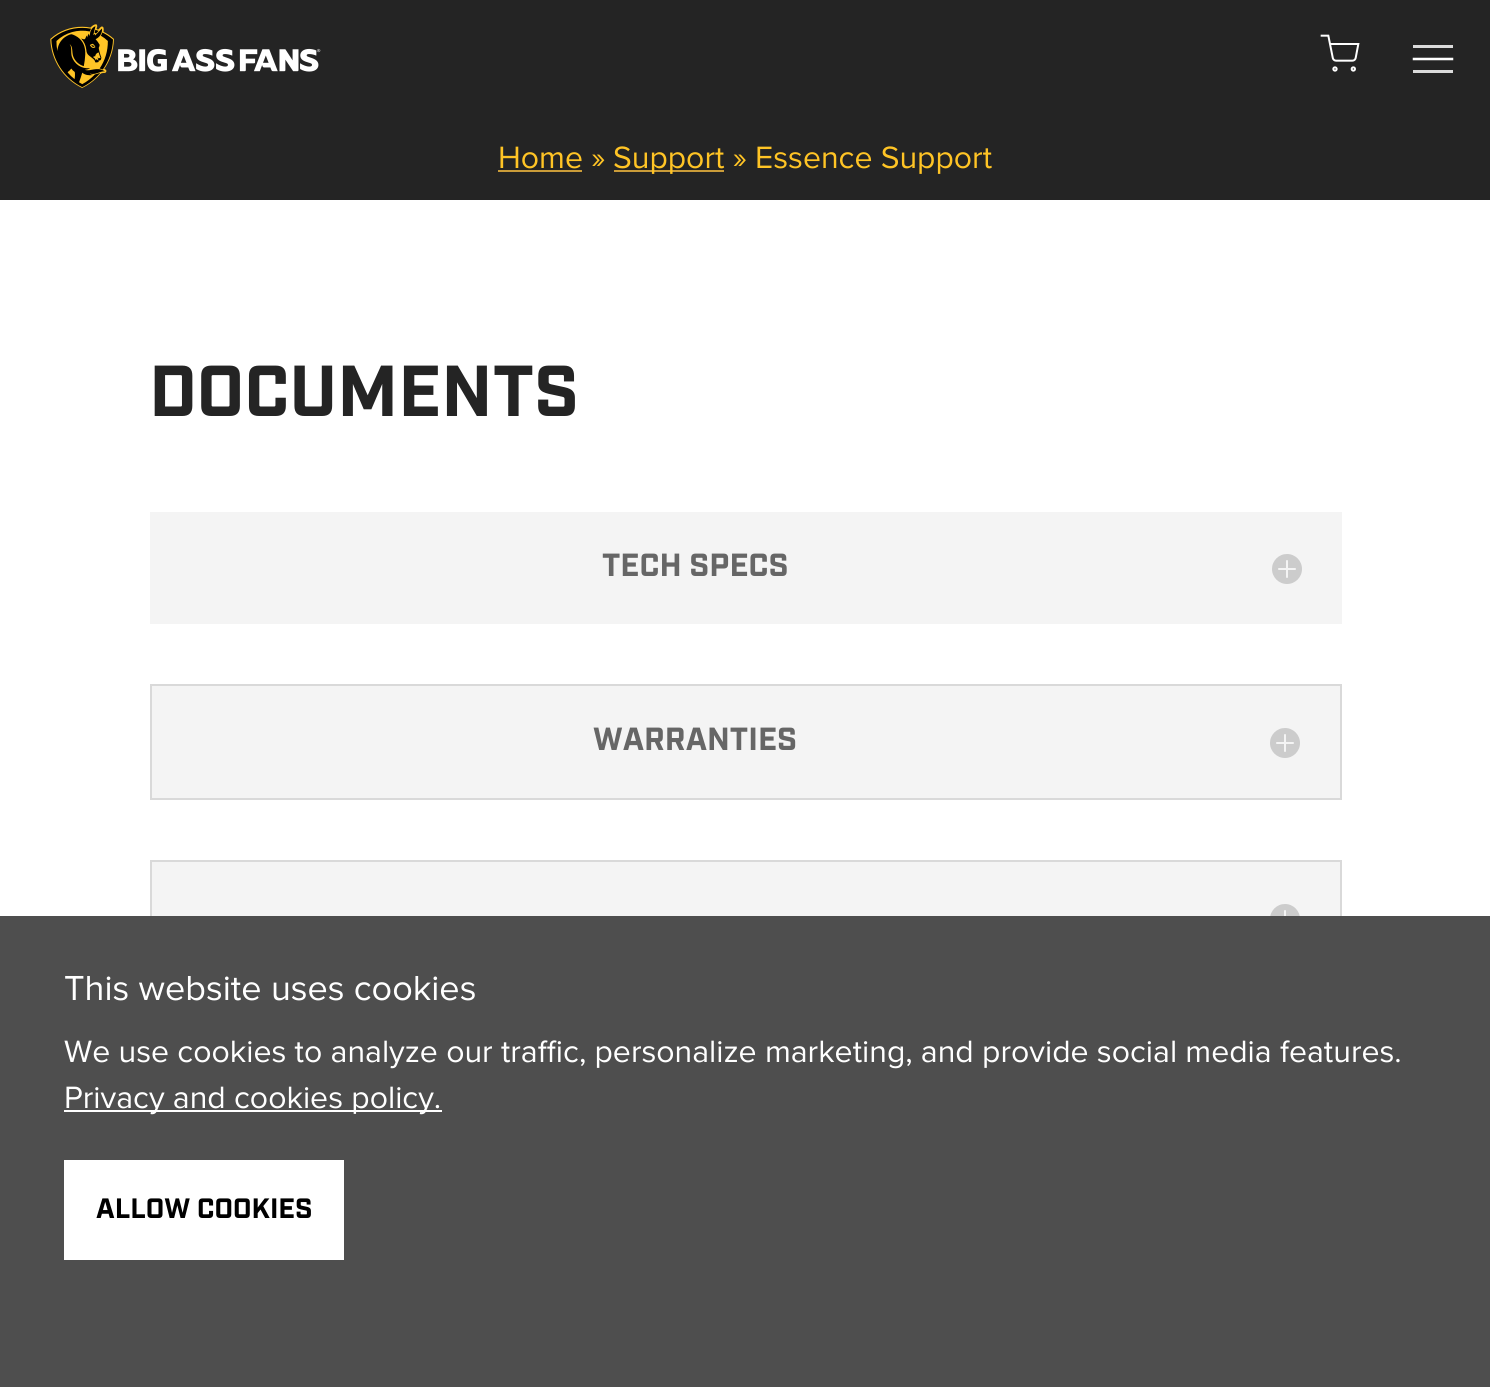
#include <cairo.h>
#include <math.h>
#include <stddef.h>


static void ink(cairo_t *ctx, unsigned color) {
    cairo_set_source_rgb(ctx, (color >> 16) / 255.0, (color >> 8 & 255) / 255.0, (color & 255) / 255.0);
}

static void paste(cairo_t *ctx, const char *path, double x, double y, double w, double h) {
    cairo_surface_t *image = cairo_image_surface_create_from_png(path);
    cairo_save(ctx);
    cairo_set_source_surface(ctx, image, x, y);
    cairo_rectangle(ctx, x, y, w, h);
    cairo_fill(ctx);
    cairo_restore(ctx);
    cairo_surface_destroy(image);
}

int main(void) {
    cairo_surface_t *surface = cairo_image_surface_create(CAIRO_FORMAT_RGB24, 1490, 1387);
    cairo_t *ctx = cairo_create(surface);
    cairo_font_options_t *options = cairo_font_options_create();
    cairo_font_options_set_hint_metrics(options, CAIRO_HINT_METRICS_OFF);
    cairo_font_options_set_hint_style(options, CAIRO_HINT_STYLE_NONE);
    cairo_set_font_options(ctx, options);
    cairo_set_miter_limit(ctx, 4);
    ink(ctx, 0xFFFFFF);
    cairo_paint(ctx);
    ink(ctx, 0x242424);
    cairo_rectangle(ctx, 0, 0, 1490, 200);
    cairo_fill(ctx);
    paste(ctx, "media/1.png", 50, 24, 271, 64);
    paste(ctx, "media/2.png", 1320, 34, 40, 38);
    cairo_new_path(ctx);
    cairo_move_to(ctx, 1414, 59);
    cairo_line_to(ctx, 1452, 59);
    ink(ctx, 0xFFFFFF);
    cairo_set_line_width(ctx, 2.5);
    cairo_set_line_cap(ctx, CAIRO_LINE_CAP_SQUARE);
    cairo_set_line_join(ctx, CAIRO_LINE_JOIN_ROUND);
    cairo_stroke(ctx);
    ink(ctx, 0xDBDBDB);
    cairo_rectangle(ctx, 1413, 45, 40, 3);
    cairo_fill(ctx);
    cairo_rectangle(ctx, 1413, 70, 40, 3);
    cairo_fill(ctx);
    cairo_select_font_face(ctx, "Proxima Nova", CAIRO_FONT_SLANT_NORMAL, CAIRO_FONT_WEIGHT_NORMAL);
    cairo_set_font_size(ctx, 32);
    ink(ctx, 0xFFC425);
    cairo_move_to(ctx, 498, 168);
    cairo_show_text(ctx, "Home »");
    ink(ctx, 0xCA9C39);
    cairo_rectangle(ctx, 498, 170, 84, 2);
    cairo_fill(ctx);
    cairo_rectangle(ctx, 614, 170, 110, 2);
    cairo_fill(ctx);
    ink(ctx, 0xFFC425);
    cairo_move_to(ctx, 613, 168);
    cairo_show_text(ctx, "Support » Essence Support");
    cairo_select_font_face(ctx, "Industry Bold", CAIRO_FONT_SLANT_NORMAL, CAIRO_FONT_WEIGHT_BOLD);
    cairo_set_font_size(ctx, 72);
    ink(ctx, 0x242424);
    cairo_move_to(ctx, 149, 416);
    cairo_show_text(ctx, "DOCUMENTS");
    ink(ctx, 0xF4F4F4);
    cairo_rectangle(ctx, 150, 512, 1192, 112);
    cairo_fill(ctx);
    cairo_set_font_size(ctx, 32);
    ink(ctx, 0x666666);
    cairo_move_to(ctx, 602, 576);
    cairo_show_text(ctx, "TECH SPECS");
    paste(ctx, "media/3.png", 1272, 554, 30, 30);
    ink(ctx, 0xF4F4F4);
    cairo_rectangle(ctx, 151, 685, 1190, 114);
    cairo_fill_preserve(ctx);
    ink(ctx, 0xD9D9D9);
    cairo_set_line_width(ctx, 2);
    cairo_set_line_cap(ctx, CAIRO_LINE_CAP_BUTT);
    cairo_set_line_join(ctx, CAIRO_LINE_JOIN_MITER);
    cairo_stroke(ctx);
    ink(ctx, 0x666666);
    cairo_move_to(ctx, 593, 750);
    cairo_show_text(ctx, "WARRANTIES");
    paste(ctx, "media/3.png", 1270, 728, 30, 30);
    ink(ctx, 0xF4F4F4);
    cairo_rectangle(ctx, 152, 862, 1188, 54);
    cairo_fill(ctx);
    cairo_rectangle(ctx, 151, 861, 1190, 114);
    ink(ctx, 0xD9D9D9);
    cairo_stroke(ctx);
    paste(ctx, "media/4.png", 1270, 904, 30, 12);
    ink(ctx, 0x4E4E4E);
    cairo_rectangle(ctx, 0, 916, 1490, 471);
    cairo_fill(ctx);
    cairo_select_font_face(ctx, "Proxima Nova", CAIRO_FONT_SLANT_NORMAL, CAIRO_FONT_WEIGHT_NORMAL);
    cairo_set_font_size(ctx, 36);
    ink(ctx, 0xFFFFFF);
    cairo_move_to(ctx, 64, 1000);
    cairo_show_text(ctx, "This website uses cookies");
    cairo_set_font_size(ctx, 32);
    cairo_move_to(ctx, 64, 1062);
    cairo_show_text(ctx, "We use cookies to analyze our traffic, personalize marketing, and provide social media features.");
    cairo_rectangle(ctx, 64, 1110, 378, 2);
    cairo_fill(ctx);
    cairo_move_to(ctx, 64, 1108);
    cairo_show_text(ctx, "Privacy and cookies policy.");
    cairo_rectangle(ctx, 64, 1160, 280, 100);
    cairo_fill(ctx);
    cairo_select_font_face(ctx, "Industry Bold", CAIRO_FONT_SLANT_NORMAL, CAIRO_FONT_WEIGHT_BOLD);
    cairo_set_font_size(ctx, 28);
    ink(ctx, 0x000000);
    cairo_move_to(ctx, 96, 1218);
    cairo_show_text(ctx, "ALLOW COOKIES");
    cairo_surface_write_to_png(surface, "image.png");
    cairo_font_options_destroy(options);
    cairo_destroy(ctx);
    cairo_surface_destroy(surface);
    return 0;
}
